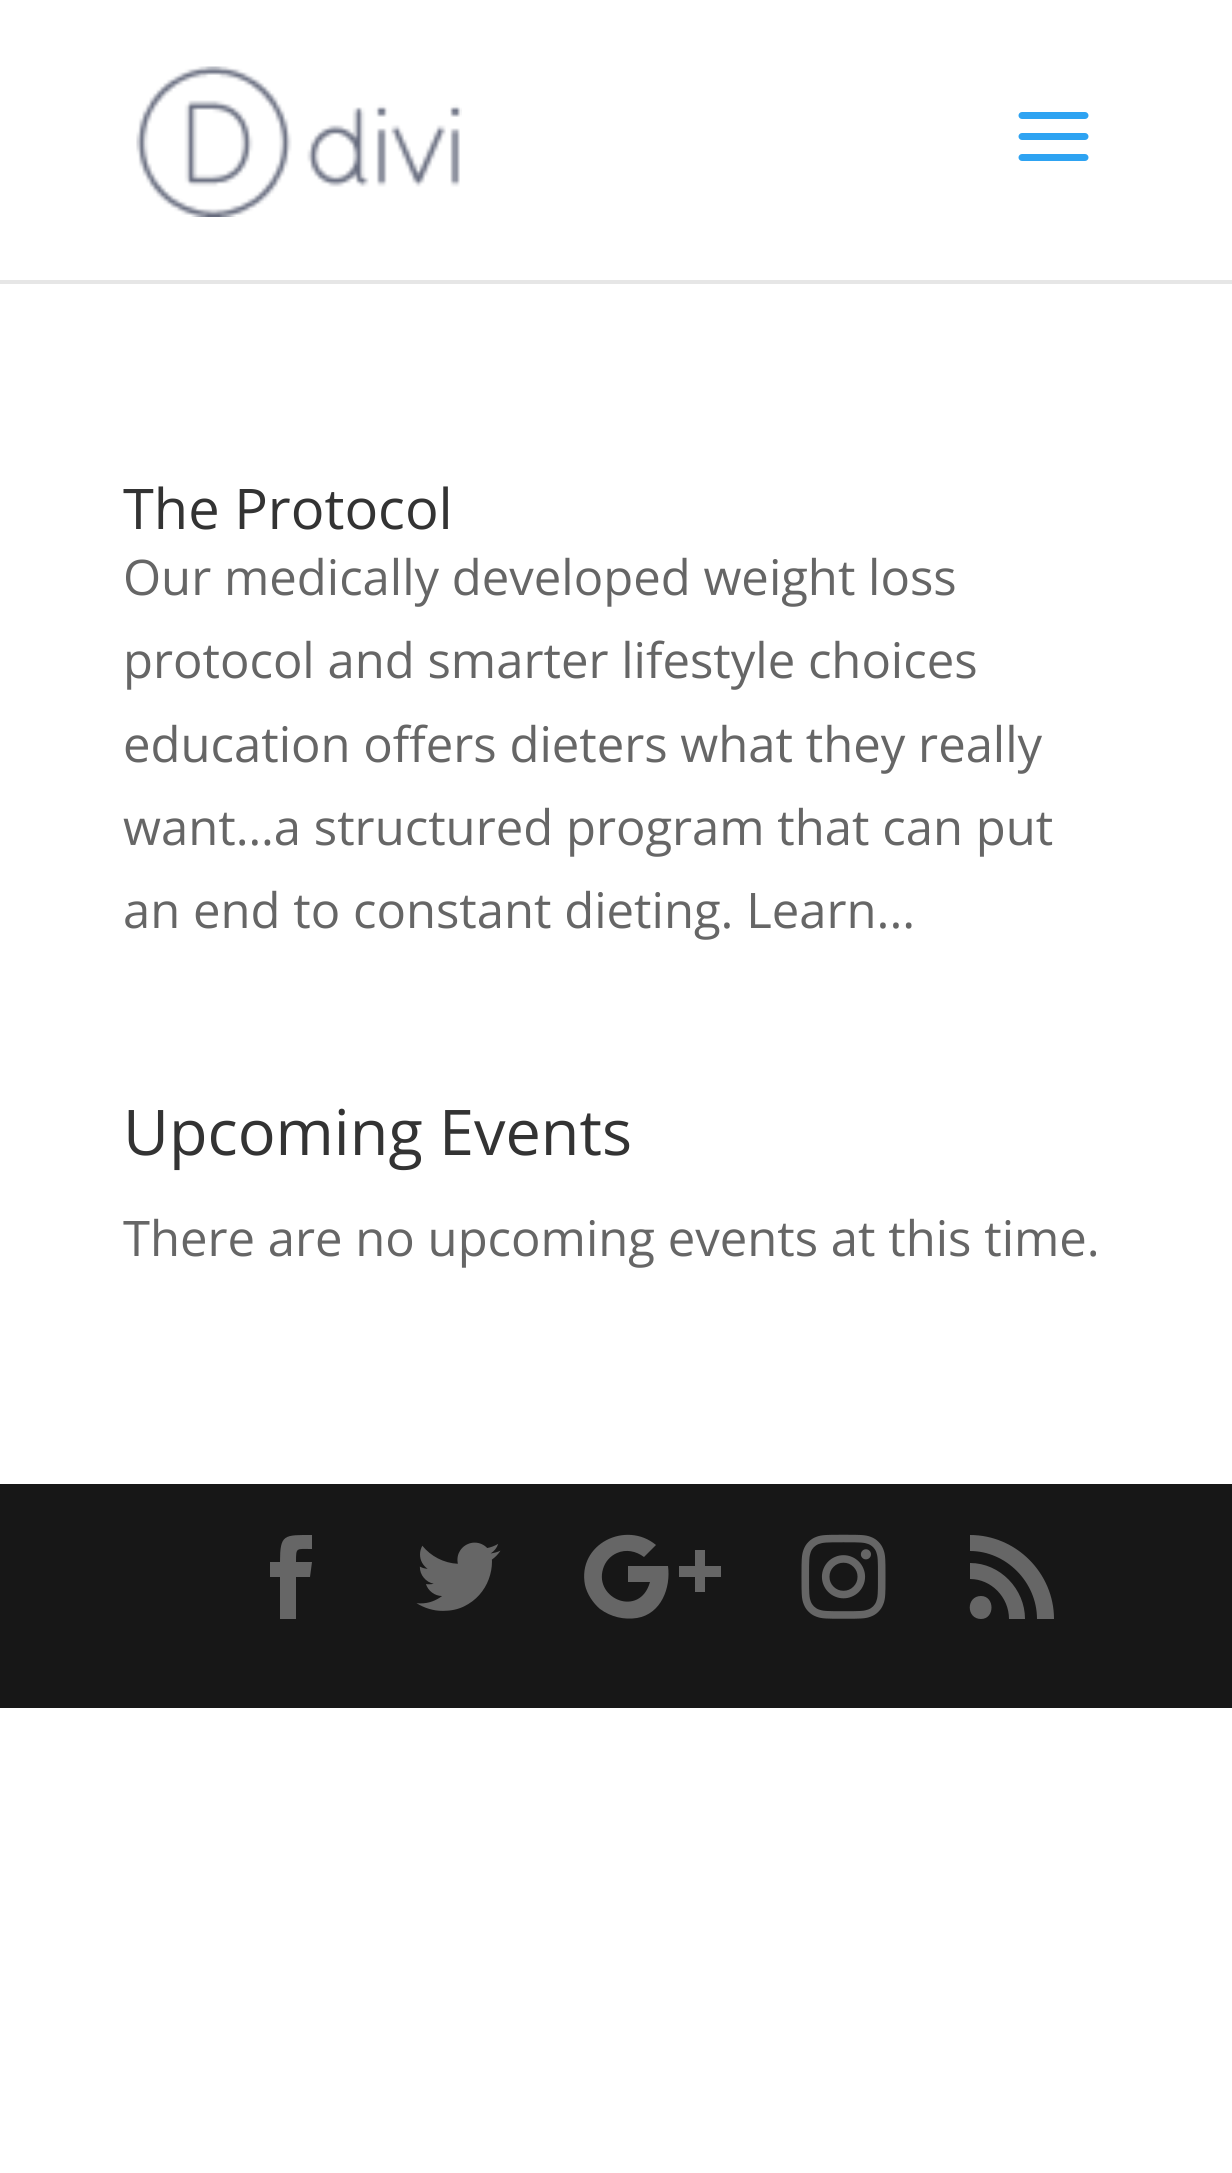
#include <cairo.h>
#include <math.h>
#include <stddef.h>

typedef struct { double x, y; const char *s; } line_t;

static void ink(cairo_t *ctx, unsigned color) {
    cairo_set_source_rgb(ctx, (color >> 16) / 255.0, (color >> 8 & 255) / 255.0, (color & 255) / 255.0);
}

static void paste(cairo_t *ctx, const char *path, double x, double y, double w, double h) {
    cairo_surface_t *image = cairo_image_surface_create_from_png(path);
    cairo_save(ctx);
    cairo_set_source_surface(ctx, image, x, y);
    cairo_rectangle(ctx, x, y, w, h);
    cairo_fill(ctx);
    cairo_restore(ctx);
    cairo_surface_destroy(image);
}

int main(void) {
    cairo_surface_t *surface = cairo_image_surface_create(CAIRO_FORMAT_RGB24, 1232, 2173);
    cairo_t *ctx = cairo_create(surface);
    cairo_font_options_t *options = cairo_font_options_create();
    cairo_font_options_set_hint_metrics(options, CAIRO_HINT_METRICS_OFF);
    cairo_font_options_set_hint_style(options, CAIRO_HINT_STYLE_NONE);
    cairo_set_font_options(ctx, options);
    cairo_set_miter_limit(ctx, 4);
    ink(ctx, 0xFFFFFF);
    cairo_paint(ctx);
    ink(ctx, 0xE6E6E6);
    cairo_rectangle(ctx, 0, 280, 1232, 4);
    cairo_fill(ctx);
    paste(ctx, "media/1.png", 136, 66, 326, 151);
    paste(ctx, "media/2.png", 1018, 112, 71, 49);
    cairo_select_font_face(ctx, "Open Sans", CAIRO_FONT_SLANT_NORMAL, CAIRO_FONT_WEIGHT_NORMAL);
    cairo_set_font_size(ctx, 56);
    ink(ctx, 0x333333);
    cairo_move_to(ctx, 123, 529);
    cairo_show_text(ctx, "The Protocol");
    cairo_set_font_size(ctx, 49);
    ink(ctx, 0x666666);
    {
        static const line_t items[] = {
            {123, 595, "Our medically developed weight loss"},
            {123, 678, "protocol and smarter lifestyle choices"},
            {123, 762, "education offers dieters what they really"},
            {123, 845, "want…a structured program that can put"},
            {123, 928, "an end to constant dieting. Learn..."},
        };
        for (size_t i = 0; i < sizeof items / sizeof *items; i++) {
            cairo_move_to(ctx, items[i].x, items[i].y);
            cairo_show_text(ctx, items[i].s);
        }
    }
    cairo_set_font_size(ctx, 63);
    ink(ctx, 0x333333);
    cairo_move_to(ctx, 123, 1155);
    cairo_show_text(ctx, "Upcoming Events");
    cairo_set_font_size(ctx, 49);
    ink(ctx, 0x666666);
    cairo_move_to(ctx, 123, 1256);
    cairo_show_text(ctx, "There are no upcoming events at this time.");
    ink(ctx, 0x171717);
    cairo_rectangle(ctx, 0, 1484, 1232, 224);
    cairo_fill(ctx);
    ink(ctx, 0x666666);
    cairo_new_path(ctx);
    cairo_move_to(ctx, 280, 1619);
    cairo_line_to(ctx, 296, 1619);
    cairo_line_to(ctx, 296, 1577);
    cairo_line_to(ctx, 310, 1577);
    cairo_line_to(ctx, 312, 1562);
    cairo_line_to(ctx, 296, 1562);
    cairo_curve_to(ctx, 296, 1547, 296, 1549, 312, 1549);
    cairo_line_to(ctx, 312, 1535);
    cairo_curve_to(ctx, 284, 1535, 280, 1534, 280, 1562);
    cairo_line_to(ctx, 270, 1562);
    cairo_line_to(ctx, 270, 1577);
    cairo_line_to(ctx, 280, 1577);
    cairo_close_path(ctx);
    cairo_fill(ctx);
    paste(ctx, "media/3.png", 416, 1542, 85, 69);
    cairo_new_path(ctx);
    cairo_move_to(ctx, 628, 1566);
    cairo_line_to(ctx, 628, 1582);
    cairo_line_to(ctx, 650, 1582);
    cairo_curve_to(ctx, 640, 1618, 594, 1599, 603, 1569);
    cairo_curve_to(ctx, 605, 1562, 610, 1556, 617, 1553);
    cairo_curve_to(ctx, 626, 1549, 636, 1551, 644, 1557);
    cairo_line_to(ctx, 656, 1545);
    cairo_curve_to(ctx, 626, 1520, 577, 1544, 585, 1585);
    cairo_curve_to(ctx, 587, 1594, 593, 1603, 600, 1609);
    cairo_curve_to(ctx, 611, 1617, 624, 1620, 637, 1618);
    cairo_curve_to(ctx, 661, 1614, 671, 1588, 668, 1566);
    cairo_close_path(ctx);
    cairo_move_to(ctx, 721, 1566);
    cairo_line_to(ctx, 705, 1566);
    cairo_line_to(ctx, 705, 1550);
    cairo_line_to(ctx, 695, 1550);
    cairo_line_to(ctx, 695, 1566);
    cairo_line_to(ctx, 679, 1566);
    cairo_line_to(ctx, 679, 1577);
    cairo_line_to(ctx, 695, 1577);
    cairo_line_to(ctx, 695, 1592);
    cairo_line_to(ctx, 705, 1592);
    cairo_line_to(ctx, 705, 1577);
    cairo_line_to(ctx, 721, 1577);
    cairo_close_path(ctx);
    cairo_fill(ctx);
    paste(ctx, "media/4.png", 801, 1534, 85, 85);
    cairo_new_path(ctx);
    cairo_move_to(ctx, 970, 1535);
    cairo_line_to(ctx, 970, 1551);
    cairo_curve_to(ctx, 1006, 1551, 1037, 1582, 1037, 1619);
    cairo_line_to(ctx, 1054, 1619);
    cairo_curve_to(ctx, 1054, 1573, 1016, 1535, 970, 1535);
    cairo_close_path(ctx);
    cairo_move_to(ctx, 1009, 1619);
    cairo_line_to(ctx, 1025, 1619);
    cairo_curve_to(ctx, 1025, 1589, 1000, 1563, 970, 1563);
    cairo_line_to(ctx, 970, 1579);
    cairo_curve_to(ctx, 991, 1579, 1009, 1597, 1009, 1619);
    cairo_close_path(ctx);
    cairo_move_to(ctx, 981, 1619);
    cairo_curve_to(ctx, 995, 1619, 995, 1596, 981, 1596);
    cairo_curve_to(ctx, 966, 1596, 966, 1619, 981, 1619);
    cairo_close_path(ctx);
    cairo_fill(ctx);
    cairo_surface_write_to_png(surface, "image.png");
    cairo_font_options_destroy(options);
    cairo_destroy(ctx);
    cairo_surface_destroy(surface);
    return 0;
}
